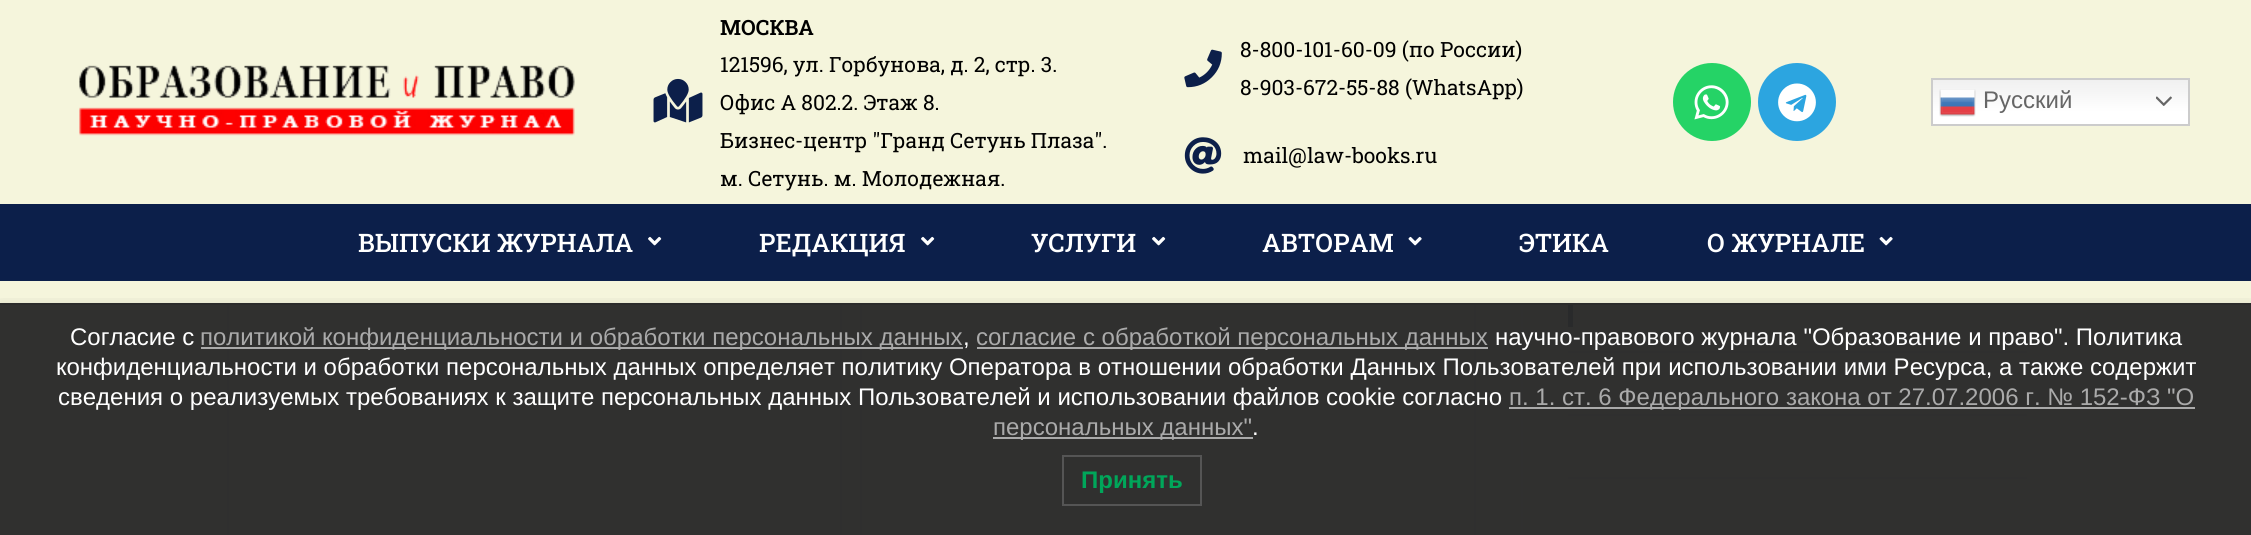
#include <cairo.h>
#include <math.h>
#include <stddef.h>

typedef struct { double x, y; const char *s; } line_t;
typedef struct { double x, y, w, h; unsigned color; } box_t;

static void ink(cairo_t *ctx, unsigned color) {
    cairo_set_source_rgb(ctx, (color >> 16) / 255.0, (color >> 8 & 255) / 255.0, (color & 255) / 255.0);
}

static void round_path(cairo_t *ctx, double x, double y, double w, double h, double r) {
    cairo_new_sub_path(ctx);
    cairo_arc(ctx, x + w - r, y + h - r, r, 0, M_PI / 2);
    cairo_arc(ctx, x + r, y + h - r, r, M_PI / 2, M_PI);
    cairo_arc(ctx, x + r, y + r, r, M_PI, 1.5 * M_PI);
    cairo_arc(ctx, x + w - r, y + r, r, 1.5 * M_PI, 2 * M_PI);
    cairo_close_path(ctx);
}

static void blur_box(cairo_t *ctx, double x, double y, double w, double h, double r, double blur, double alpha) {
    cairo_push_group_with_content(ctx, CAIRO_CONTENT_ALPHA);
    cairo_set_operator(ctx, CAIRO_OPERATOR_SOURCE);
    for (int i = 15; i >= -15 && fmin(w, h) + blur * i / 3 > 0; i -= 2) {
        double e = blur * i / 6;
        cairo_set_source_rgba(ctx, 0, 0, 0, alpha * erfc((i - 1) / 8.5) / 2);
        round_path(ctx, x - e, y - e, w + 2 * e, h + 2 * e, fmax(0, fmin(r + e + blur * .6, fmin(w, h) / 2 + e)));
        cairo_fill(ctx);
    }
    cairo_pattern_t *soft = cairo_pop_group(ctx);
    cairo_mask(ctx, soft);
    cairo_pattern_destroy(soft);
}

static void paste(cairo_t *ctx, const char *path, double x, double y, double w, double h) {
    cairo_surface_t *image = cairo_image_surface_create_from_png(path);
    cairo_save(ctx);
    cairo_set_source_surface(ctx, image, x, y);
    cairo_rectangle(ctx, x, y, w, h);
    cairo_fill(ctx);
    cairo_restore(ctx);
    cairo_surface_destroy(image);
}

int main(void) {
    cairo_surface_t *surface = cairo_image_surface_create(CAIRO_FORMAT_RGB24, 2251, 535);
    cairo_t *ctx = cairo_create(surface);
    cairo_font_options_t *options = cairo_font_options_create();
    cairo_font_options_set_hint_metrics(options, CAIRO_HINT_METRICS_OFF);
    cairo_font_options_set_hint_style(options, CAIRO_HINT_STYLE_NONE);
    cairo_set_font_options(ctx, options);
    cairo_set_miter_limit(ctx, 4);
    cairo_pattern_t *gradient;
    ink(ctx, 0xF5F5DC);
    cairo_paint(ctx);
    paste(ctx, "media/1.png", 79, 65, 496, 71);
    paste(ctx, "media/2.png", 653, 78, 50, 45);
    cairo_select_font_face(ctx, "Roboto Slab SemiBold", CAIRO_FONT_SLANT_NORMAL, CAIRO_FONT_WEIGHT_NORMAL);
    cairo_set_font_size(ctx, 21);
    ink(ctx, 0x000000);
    cairo_move_to(ctx, 720, 35);
    cairo_show_text(ctx, "МОСКВА");
    cairo_select_font_face(ctx, "Roboto Slab", CAIRO_FONT_SLANT_NORMAL, CAIRO_FONT_WEIGHT_NORMAL);
    {
        static const line_t items[] = {
            {720, 72, "121596, ул. Горбунова, д. 2, стр. 3."},
            {720, 110, "Офис А 802.2. Этаж 8."},
            {720, 148, "Бизнес-центр \"Гранд Сетунь Плаза\"."},
            {720, 186, "м. Сетунь. м. Молодежная."},
        };
        for (size_t i = 0; i < sizeof items / sizeof *items; i++) {
            cairo_move_to(ctx, items[i].x, items[i].y);
            cairo_show_text(ctx, items[i].s);
        }
    }
    paste(ctx, "media/3.png", 1184, 49, 38, 39);
    cairo_move_to(ctx, 1240, 57);
    cairo_show_text(ctx, "8-800-101-60-09 (по России)");
    cairo_move_to(ctx, 1240, 95);
    cairo_show_text(ctx, "8-903-672-55-88 (WhatsApp)");
    paste(ctx, "media/4.png", 1184, 137, 38, 37);
    cairo_move_to(ctx, 1243, 163);
    cairo_show_text(ctx, "mail@law-books.ru");
    ink(ctx, 0x25D366);
    cairo_new_path(ctx);
    cairo_arc(ctx, 1712, 102, 39, 0, 2 * M_PI);
    cairo_fill(ctx);
    paste(ctx, "media/5.png", 1694, 85, 35, 35);
    ink(ctx, 0x2CA5E0);
    cairo_arc(ctx, 1797, 102, 39, 0, 2 * M_PI);
    cairo_fill(ctx);
    paste(ctx, "media/6.png", 1778, 83, 38, 39);
    gradient = cairo_pattern_create_linear(2060, 78, 2060, 126);
    cairo_pattern_add_color_stop_rgba(gradient, 0, 0.937, 0.937, 0.937, 1);
    cairo_pattern_add_color_stop_rgba(gradient, 0.7, 1, 1, 1, 1);
    cairo_set_source(ctx, gradient);
    cairo_pattern_destroy(gradient);
    cairo_rectangle(ctx, 1933, 80, 255, 44);
    cairo_fill(ctx);
    cairo_rectangle(ctx, 1932, 79, 257, 46);
    ink(ctx, 0xCCCCCC);
    cairo_stroke(ctx);
    paste(ctx, "media/7.png", 1939, 89, 37, 28);
    cairo_select_font_face(ctx, "Liberation Sans", CAIRO_FONT_SLANT_NORMAL, CAIRO_FONT_WEIGHT_NORMAL);
    cairo_set_font_size(ctx, 24);
    ink(ctx, 0x666666);
    cairo_move_to(ctx, 1983, 108);
    cairo_show_text(ctx, "Русский");
    paste(ctx, "media/8.png", 2156, 96, 16, 10);
    ink(ctx, 0x0C1F4A);
    cairo_rectangle(ctx, 0, 204, 2251, 77);
    cairo_fill(ctx);
    cairo_select_font_face(ctx, "Roboto Slab Medium", CAIRO_FONT_SLANT_NORMAL, CAIRO_FONT_WEIGHT_NORMAL);
    cairo_set_font_size(ctx, 25.5);
    ink(ctx, 0xFFFFFF);
    cairo_move_to(ctx, 358, 252);
    cairo_show_text(ctx, "ВЫПУСКИ ЖУРНАЛА");
    paste(ctx, "media/9.png", 648, 236, 14, 10);
    cairo_move_to(ctx, 759, 252);
    cairo_show_text(ctx, "РЕДАКЦИЯ");
    paste(ctx, "media/9.png", 921, 236, 14, 10);
    cairo_move_to(ctx, 1031, 252);
    cairo_show_text(ctx, "УСЛУГИ");
    paste(ctx, "media/9.png", 1152, 236, 14, 10);
    cairo_move_to(ctx, 1262, 252);
    cairo_show_text(ctx, "АВТОРАМ");
    paste(ctx, "media/10.png", 1408, 236, 14, 10);
    cairo_move_to(ctx, 1519, 252);
    cairo_show_text(ctx, "ЭТИКА");
    cairo_move_to(ctx, 1707, 252);
    cairo_show_text(ctx, "О ЖУРНАЛЕ");
    paste(ctx, "media/10.png", 1879, 236, 14, 10);
    ink(ctx, 0xF1F1F1);
    cairo_rectangle(ctx, 1521, 303, 2, 232);
    cairo_fill(ctx);
    cairo_rectangle(ctx, 228, 304, 613, 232);
    ink(ctx, 0xE9E9E9);
    cairo_stroke(ctx);
    cairo_rectangle(ctx, 861, 304, 614, 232);
    cairo_stroke(ctx);
    {
        static const box_t items[] = {
            {1568, 303, 5, 24, 0x0C1F4A},
            {1568, 351, 459, 2, 0xE9E9E9},
            {1568, 414, 459, 2, 0xE9E9E9},
            {1568, 477, 459, 2, 0xE9E9E9},
        };
        for (size_t i = 0; i < sizeof items / sizeof *items; i++) {
            ink(ctx, items[i].color);
            cairo_rectangle(ctx, items[i].x, items[i].y, items[i].w, items[i].h);
            cairo_fill(ctx);
        }
    }
    cairo_save(ctx);
    cairo_rectangle(ctx, 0, 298, 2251, 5);
    cairo_clip(ctx);
    ink(ctx, 0x000000);
    blur_box(ctx, 0, 303, 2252, 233, 0, 6, 0.1);
    cairo_restore(ctx);
    cairo_set_source_rgba(ctx, 0.169, 0.169, 0.169, 0.97);
    cairo_rectangle(ctx, 0, 305, 2251, 230);
    cairo_fill(ctx);
    ink(ctx, 0x2B2B2B);
    cairo_rectangle(ctx, 0, 303, 2251, 2);
    cairo_fill(ctx);
    cairo_select_font_face(ctx, "Liberation Sans", CAIRO_FONT_SLANT_NORMAL, CAIRO_FONT_WEIGHT_NORMAL);
    cairo_set_font_size(ctx, 24);
    ink(ctx, 0xFFFFFF);
    cairo_move_to(ctx, 70, 345);
    cairo_show_text(ctx, "Согласие с");
    ink(ctx, 0xAAAAAA);
    cairo_rectangle(ctx, 201, 347, 762, 2);
    cairo_fill(ctx);
    cairo_move_to(ctx, 200, 345);
    cairo_show_text(ctx, "политикой конфиденциальности и обработки персональных данных");
    ink(ctx, 0xFFFFFF);
    cairo_move_to(ctx, 963, 345);
    cairo_show_text(ctx, ",");
    ink(ctx, 0xAAAAAA);
    cairo_rectangle(ctx, 977, 347, 511, 2);
    cairo_fill(ctx);
    cairo_move_to(ctx, 976, 345);
    cairo_show_text(ctx, "согласие с обработкой персональных данных");
    ink(ctx, 0xFFFFFF);
    {
        static const line_t items[] = {
            {1495, 345, "научно-правового журнала \"Образование и право\". Политика"},
            {56, 375, "конфиденциальности и обработки персональных данных определяет политику Оператора в отношении обработки Данных Пользователей при использовании ими Ресурса, а также содержит"},
            {58, 405, "сведения о реализуемых требованиях к защите персональных данных Пользователей и использовании файлов cookie согласно"},
        };
        for (size_t i = 0; i < sizeof items / sizeof *items; i++) {
            cairo_move_to(ctx, items[i].x, items[i].y);
            cairo_show_text(ctx, items[i].s);
        }
    }
    ink(ctx, 0xAAAAAA);
    cairo_rectangle(ctx, 1509, 407, 686, 2);
    cairo_fill(ctx);
    cairo_move_to(ctx, 1509, 405);
    cairo_show_text(ctx, "п. 1. ст. 6 Федерального закона от 27.07.2006 г. № 152-ФЗ \"О");
    cairo_rectangle(ctx, 993, 437, 260, 2);
    cairo_fill(ctx);
    cairo_move_to(ctx, 993, 435);
    cairo_show_text(ctx, "персональных данных\"");
    ink(ctx, 0xFFFFFF);
    cairo_move_to(ctx, 1252, 435);
    cairo_show_text(ctx, ".");
    cairo_rectangle(ctx, 1063, 456, 138, 49);
    ink(ctx, 0x555555);
    cairo_stroke(ctx);
    cairo_select_font_face(ctx, "Liberation Sans", CAIRO_FONT_SLANT_NORMAL, CAIRO_FONT_WEIGHT_BOLD);
    ink(ctx, 0x00A65A);
    cairo_move_to(ctx, 1081, 488);
    cairo_show_text(ctx, "Принять");
    cairo_surface_write_to_png(surface, "image.png");
    cairo_font_options_destroy(options);
    cairo_destroy(ctx);
    cairo_surface_destroy(surface);
    return 0;
}
